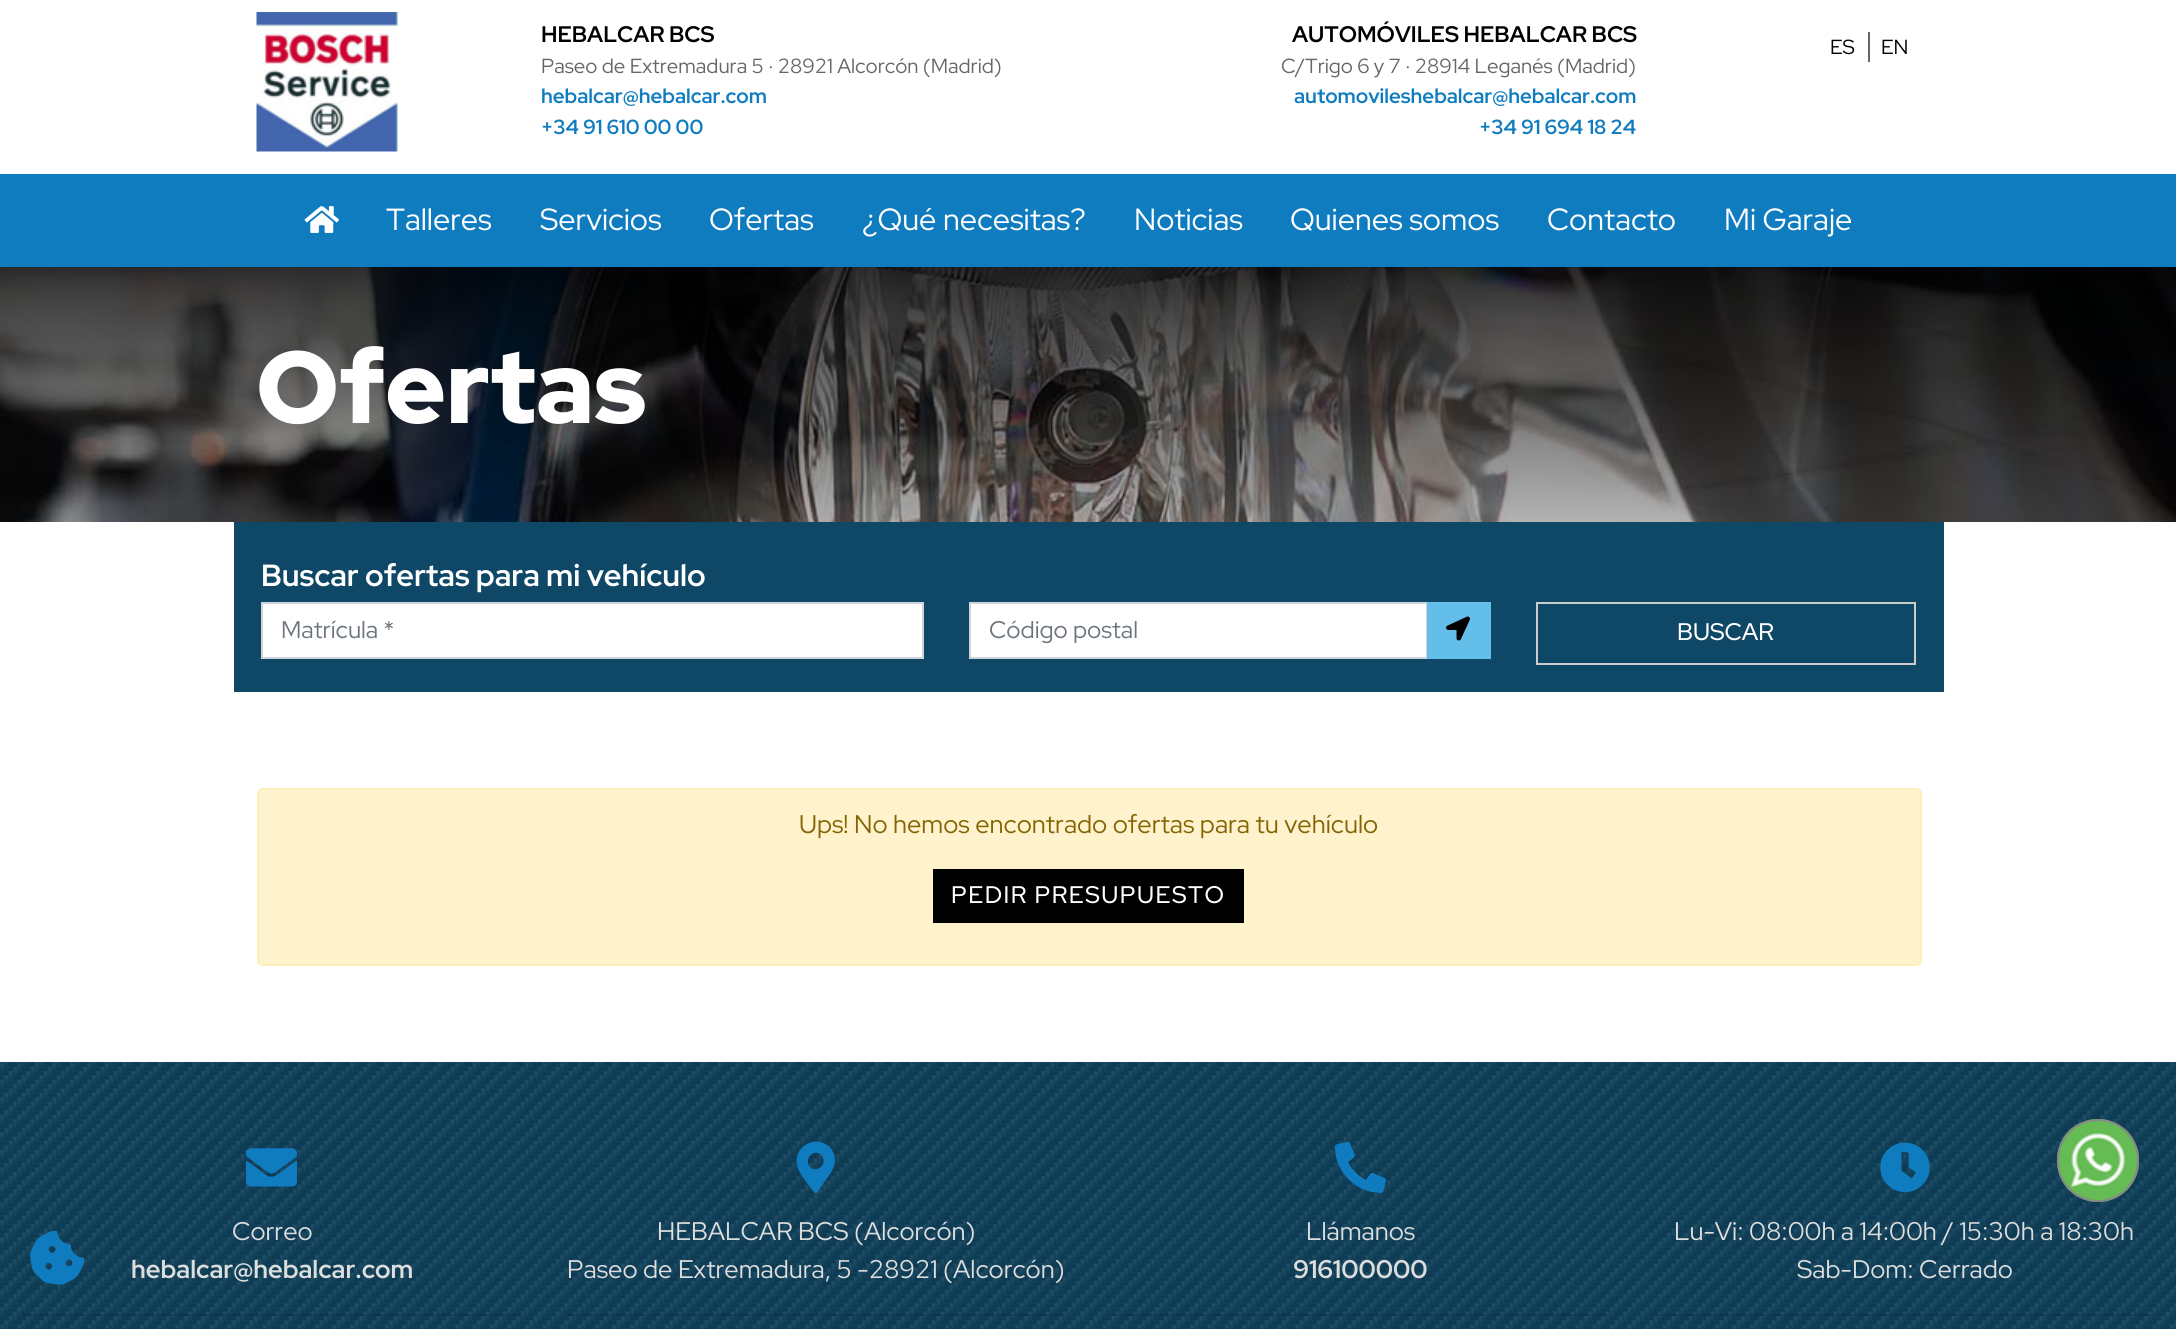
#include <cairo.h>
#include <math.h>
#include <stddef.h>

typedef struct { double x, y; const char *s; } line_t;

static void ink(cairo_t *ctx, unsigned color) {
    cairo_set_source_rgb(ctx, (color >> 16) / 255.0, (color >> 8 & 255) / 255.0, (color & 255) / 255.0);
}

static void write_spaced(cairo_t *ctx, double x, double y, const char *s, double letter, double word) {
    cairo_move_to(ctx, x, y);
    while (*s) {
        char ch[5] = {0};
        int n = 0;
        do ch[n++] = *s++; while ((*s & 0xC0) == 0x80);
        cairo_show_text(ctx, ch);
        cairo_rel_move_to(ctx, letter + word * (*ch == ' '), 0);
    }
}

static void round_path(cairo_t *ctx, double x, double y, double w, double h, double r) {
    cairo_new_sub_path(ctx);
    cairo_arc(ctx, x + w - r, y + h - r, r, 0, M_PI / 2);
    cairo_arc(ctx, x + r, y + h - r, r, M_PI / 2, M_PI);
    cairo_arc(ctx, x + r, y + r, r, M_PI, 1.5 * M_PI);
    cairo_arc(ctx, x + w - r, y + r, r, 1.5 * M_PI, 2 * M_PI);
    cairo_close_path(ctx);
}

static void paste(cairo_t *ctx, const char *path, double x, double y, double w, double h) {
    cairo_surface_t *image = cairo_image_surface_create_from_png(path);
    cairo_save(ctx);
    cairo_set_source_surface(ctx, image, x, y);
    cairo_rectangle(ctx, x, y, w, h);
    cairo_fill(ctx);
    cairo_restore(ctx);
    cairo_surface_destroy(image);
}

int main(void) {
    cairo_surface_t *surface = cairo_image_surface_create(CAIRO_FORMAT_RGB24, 2176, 1329);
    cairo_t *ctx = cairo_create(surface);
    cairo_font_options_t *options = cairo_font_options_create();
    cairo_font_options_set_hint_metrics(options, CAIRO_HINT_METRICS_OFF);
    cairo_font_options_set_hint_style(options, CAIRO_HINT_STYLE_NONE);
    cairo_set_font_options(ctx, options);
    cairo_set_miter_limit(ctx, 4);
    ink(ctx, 0xFFFFFF);
    cairo_paint(ctx);
    paste(ctx, "media/1.png", 256, 12, 142, 140);
    cairo_select_font_face(ctx, "Red Hat Display", CAIRO_FONT_SLANT_NORMAL, CAIRO_FONT_WEIGHT_BOLD);
    cairo_set_font_size(ctx, 22.5);
    ink(ctx, 0x000000);
    cairo_move_to(ctx, 541, 42);
    cairo_show_text(ctx, "HEBALCAR BCS");
    cairo_select_font_face(ctx, "Red Hat Display", CAIRO_FONT_SLANT_NORMAL, CAIRO_FONT_WEIGHT_NORMAL);
    cairo_set_font_size(ctx, 20.4);
    ink(ctx, 0x666666);
    cairo_move_to(ctx, 541, 73);
    cairo_show_text(ctx, "Paseo de Extremadura 5 · 28921 Alcorcón (Madrid)");
    cairo_select_font_face(ctx, "Red Hat Display", CAIRO_FONT_SLANT_NORMAL, CAIRO_FONT_WEIGHT_BOLD);
    ink(ctx, 0x107CC0);
    cairo_move_to(ctx, 541, 103);
    cairo_show_text(ctx, "hebalcar@hebalcar.com");
    cairo_move_to(ctx, 541, 134);
    cairo_show_text(ctx, "+34 91 610 00 00");
    cairo_set_font_size(ctx, 22.5);
    ink(ctx, 0x000000);
    cairo_move_to(ctx, 1292, 42);
    cairo_show_text(ctx, "AUTOMÓVILES HEBALCAR BCS");
    cairo_select_font_face(ctx, "Red Hat Display", CAIRO_FONT_SLANT_NORMAL, CAIRO_FONT_WEIGHT_NORMAL);
    cairo_set_font_size(ctx, 20.4);
    ink(ctx, 0x666666);
    cairo_move_to(ctx, 1281, 73);
    cairo_show_text(ctx, "C/Trigo 6 y 7 · 28914 Leganés (Madrid)");
    cairo_select_font_face(ctx, "Red Hat Display", CAIRO_FONT_SLANT_NORMAL, CAIRO_FONT_WEIGHT_BOLD);
    ink(ctx, 0x107CC0);
    cairo_move_to(ctx, 1294, 103);
    cairo_show_text(ctx, "automovileshebalcar@hebalcar.com");
    cairo_move_to(ctx, 1479, 134);
    cairo_show_text(ctx, "+34 91 694 18 24");
    ink(ctx, 0x666666);
    cairo_rectangle(ctx, 1868, 32, 2, 30);
    cairo_fill(ctx);
    cairo_select_font_face(ctx, "Red Hat Display", CAIRO_FONT_SLANT_NORMAL, CAIRO_FONT_WEIGHT_NORMAL);
    ink(ctx, 0x000000);
    cairo_move_to(ctx, 1830, 54);
    cairo_show_text(ctx, "ES");
    cairo_move_to(ctx, 1881, 54);
    cairo_show_text(ctx, "EN");
    ink(ctx, 0x107CC0);
    cairo_rectangle(ctx, 0, 174, 2176, 93);
    cairo_fill(ctx);
    paste(ctx, "media/2.png", 304, 206, 35, 27);
    cairo_set_font_size(ctx, 30.6);
    ink(ctx, 0xFFFFFF);
    {
        static const line_t items[] = {
            {386, 230, "Talleres"},
            {540, 230, "Servicios"},
            {709, 230, "Ofertas"},
            {862, 230, "¿Qué necesitas?"},
            {1134, 230, "Noticias"},
            {1290, 230, "Quienes somos"},
            {1547, 230, "Contacto"},
            {1724, 230, "Mi Garaje"},
        };
        for (size_t i = 0; i < sizeof items / sizeof *items; i++) {
            cairo_move_to(ctx, items[i].x, items[i].y);
            cairo_show_text(ctx, items[i].s);
        }
    }
    paste(ctx, "media/3.png", 0, 267, 2176, 255);
    cairo_select_font_face(ctx, "Red Hat Display Black", CAIRO_FONT_SLANT_NORMAL, CAIRO_FONT_WEIGHT_NORMAL);
    cairo_set_font_size(ctx, 102);
    cairo_move_to(ctx, 256, 423);
    cairo_show_text(ctx, "Ofertas");
    ink(ctx, 0x0E4866);
    cairo_rectangle(ctx, 234, 522, 1710, 170);
    cairo_fill(ctx);
    cairo_select_font_face(ctx, "Red Hat Display", CAIRO_FONT_SLANT_NORMAL, CAIRO_FONT_WEIGHT_BOLD);
    cairo_set_font_size(ctx, 30.6);
    ink(ctx, 0xFFFFFF);
    cairo_move_to(ctx, 261, 586);
    cairo_show_text(ctx, "Buscar ofertas para mi vehículo");
    cairo_rectangle(ctx, 262, 603, 661, 55);
    cairo_fill_preserve(ctx);
    ink(ctx, 0xCED4DA);
    cairo_stroke(ctx);
    cairo_select_font_face(ctx, "Red Hat Display", CAIRO_FONT_SLANT_NORMAL, CAIRO_FONT_WEIGHT_NORMAL);
    cairo_set_font_size(ctx, 24);
    ink(ctx, 0x6C757D);
    cairo_move_to(ctx, 281, 638);
    cairo_show_text(ctx, "Matrícula *");
    ink(ctx, 0xFFFFFF);
    cairo_rectangle(ctx, 970, 603, 457, 55);
    cairo_fill_preserve(ctx);
    ink(ctx, 0xCED4DA);
    cairo_stroke(ctx);
    ink(ctx, 0x6C757D);
    cairo_move_to(ctx, 989, 638);
    cairo_show_text(ctx, "Código postal");
    ink(ctx, 0x64BEEA);
    cairo_rectangle(ctx, 1427, 602, 64, 57);
    cairo_fill(ctx);
    paste(ctx, "media/4.png", 1446, 616, 24, 25);
    cairo_rectangle(ctx, 1537, 603, 378, 61);
    ink(ctx, 0xCCCCCC);
    cairo_stroke(ctx);
    cairo_select_font_face(ctx, "Red Hat Display Medium", CAIRO_FONT_SLANT_NORMAL, CAIRO_FONT_WEIGHT_NORMAL);
    ink(ctx, 0xFFFFFF);
    cairo_move_to(ctx, 1677, 640);
    cairo_show_text(ctx, "BUSCAR");
    ink(ctx, 0xFFF3CD);
    round_path(ctx, 258, 789, 1663, 176, 5);
    cairo_fill_preserve(ctx);
    ink(ctx, 0xFFEEBA);
    cairo_stroke(ctx);
    cairo_select_font_face(ctx, "Red Hat Display", CAIRO_FONT_SLANT_NORMAL, CAIRO_FONT_WEIGHT_NORMAL);
    cairo_set_font_size(ctx, 25.5);
    ink(ctx, 0x856404);
    cairo_move_to(ctx, 799, 833);
    cairo_show_text(ctx, "Ups! No hemos encontrado ofertas para tu vehículo");
    ink(ctx, 0x000000);
    cairo_rectangle(ctx, 933, 869, 311, 54);
    cairo_fill(ctx);
    cairo_select_font_face(ctx, "Red Hat Display Medium", CAIRO_FONT_SLANT_NORMAL, CAIRO_FONT_WEIGHT_NORMAL);
    cairo_set_font_size(ctx, 24);
    ink(ctx, 0xFFFFFF);
    write_spaced(ctx, 951, 903, "PEDIR PRESUPUESTO", 1.5, 0);
    ink(ctx, 0x0E4866);
    cairo_rectangle(ctx, 0, 1062, 2176, 267);
    cairo_fill(ctx);
    paste(ctx, "media/7.png", 0, 1062, 2176, 267);
    ink(ctx, 0x65BC54);
    round_path(ctx, 2057, 1119, 82, 83, 41);
    cairo_fill(ctx);
    paste(ctx, "media/5.png", 2063, 1126, 69, 68);
    round_path(ctx, 2058, 1120, 80, 81, 40);
    ink(ctx, 0x888888);
    cairo_stroke(ctx);
    paste(ctx, "media/6.png", 30, 1230, 55, 55);
    paste(ctx, "media/8.png", 246, 1148, 51, 39);
    cairo_select_font_face(ctx, "Red Hat Display", CAIRO_FONT_SLANT_NORMAL, CAIRO_FONT_WEIGHT_NORMAL);
    cairo_set_font_size(ctx, 25.5);
    ink(ctx, 0xDDDDDD);
    cairo_move_to(ctx, 232, 1240);
    cairo_show_text(ctx, "Correo");
    cairo_select_font_face(ctx, "Red Hat Display", CAIRO_FONT_SLANT_NORMAL, CAIRO_FONT_WEIGHT_BOLD);
    cairo_move_to(ctx, 131, 1278);
    cairo_show_text(ctx, "hebalcar@hebalcar.com");
    cairo_set_source_rgba(ctx, 0, 0, 0, 0.1);
    cairo_rectangle(ctx, 23, 1314, 499, 2);
    cairo_fill(ctx);
    ink(ctx, 0x107CC0);
    cairo_new_path(ctx);
    cairo_move_to(ctx, 814, 1192);
    cairo_curve_to(ctx, 809, 1186, 798, 1172, 797, 1165);
    cairo_curve_to(ctx, 793, 1144, 820, 1133, 832, 1150);
    cairo_curve_to(ctx, 840, 1163, 830, 1174, 823, 1184);
    cairo_line_to(ctx, 817, 1193);
    cairo_curve_to(ctx, 816, 1193, 814, 1193, 814, 1192);
    cairo_close_path(ctx);
    cairo_move_to(ctx, 810, 1167);
    cairo_curve_to(ctx, 817, 1174, 829, 1163, 821, 1155);
    cairo_curve_to(ctx, 814, 1148, 803, 1159, 810, 1167);
    cairo_close_path(ctx);
    cairo_fill(ctx);
    cairo_select_font_face(ctx, "Red Hat Display", CAIRO_FONT_SLANT_NORMAL, CAIRO_FONT_WEIGHT_NORMAL);
    ink(ctx, 0xDDDDDD);
    cairo_move_to(ctx, 657, 1240);
    cairo_show_text(ctx, "HEBALCAR BCS (Alcorcón)");
    cairo_move_to(ctx, 567, 1278);
    cairo_show_text(ctx, "Paseo de Extremadura, 5 -28921 (Alcorcón)");
    cairo_set_source_rgba(ctx, 0, 0, 0, 0.1);
    cairo_rectangle(ctx, 567, 1314, 500, 2);
    cairo_fill(ctx);
    paste(ctx, "media/9.png", 1335, 1141, 51, 52);
    ink(ctx, 0xDDDDDD);
    cairo_move_to(ctx, 1306, 1240);
    cairo_show_text(ctx, "Llámanos");
    cairo_select_font_face(ctx, "Red Hat Display", CAIRO_FONT_SLANT_NORMAL, CAIRO_FONT_WEIGHT_BOLD);
    cairo_move_to(ctx, 1293, 1278);
    cairo_show_text(ctx, "916100000");
    cairo_set_source_rgba(ctx, 0, 0, 0, 0.1);
    cairo_rectangle(ctx, 1112, 1314, 498, 2);
    cairo_fill(ctx);
    paste(ctx, "media/10.png", 1880, 1142, 50, 51);
    cairo_select_font_face(ctx, "Red Hat Display", CAIRO_FONT_SLANT_NORMAL, CAIRO_FONT_WEIGHT_NORMAL);
    ink(ctx, 0xDDDDDD);
    cairo_move_to(ctx, 1674, 1240);
    cairo_show_text(ctx, "Lu-Vi: 08:00h a 14:00h / 15:30h a 18:30h");
    cairo_move_to(ctx, 1797, 1278);
    cairo_show_text(ctx, "Sab-Dom: Cerrado");
    cairo_set_source_rgba(ctx, 0, 0, 0, 0.1);
    cairo_rectangle(ctx, 1655, 1314, 499, 2);
    cairo_fill(ctx);
    cairo_surface_write_to_png(surface, "image.png");
    cairo_font_options_destroy(options);
    cairo_destroy(ctx);
    cairo_surface_destroy(surface);
    return 0;
}
